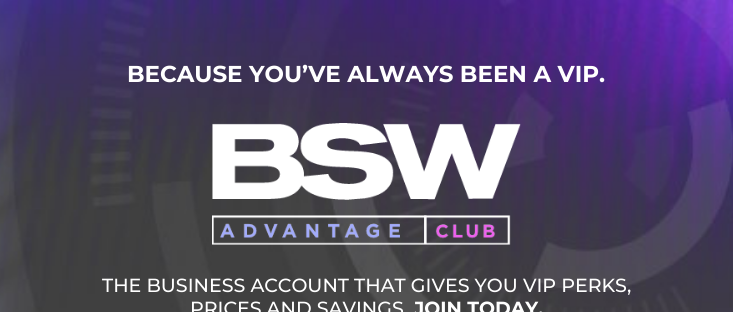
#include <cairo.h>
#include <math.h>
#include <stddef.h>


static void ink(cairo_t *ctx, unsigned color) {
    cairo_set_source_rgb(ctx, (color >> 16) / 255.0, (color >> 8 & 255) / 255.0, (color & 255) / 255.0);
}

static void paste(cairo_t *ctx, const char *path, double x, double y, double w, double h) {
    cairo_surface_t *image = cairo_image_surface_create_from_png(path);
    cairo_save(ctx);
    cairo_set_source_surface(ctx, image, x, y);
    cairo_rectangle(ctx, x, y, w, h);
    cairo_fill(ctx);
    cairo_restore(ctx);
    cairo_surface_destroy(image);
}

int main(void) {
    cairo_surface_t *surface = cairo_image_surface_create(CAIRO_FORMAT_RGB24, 733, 312);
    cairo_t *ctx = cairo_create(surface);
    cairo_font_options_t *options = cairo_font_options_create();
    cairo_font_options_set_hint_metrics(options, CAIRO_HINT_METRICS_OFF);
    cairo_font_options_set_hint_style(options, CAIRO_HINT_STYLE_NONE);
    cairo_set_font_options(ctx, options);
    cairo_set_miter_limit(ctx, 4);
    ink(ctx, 0xFFFFFF);
    cairo_paint(ctx);
    paste(ctx, "media/1.png", 0, 0, 733, 312);
    cairo_select_font_face(ctx, "Montserrat", CAIRO_FONT_SLANT_NORMAL, CAIRO_FONT_WEIGHT_BOLD);
    cairo_set_font_size(ctx, 23);
    ink(ctx, 0xFFFFFF);
    cairo_move_to(ctx, 127, 82);
    cairo_show_text(ctx, "BECAUSE YOU’VE ALWAYS BEEN A VIP.");
    paste(ctx, "media/2.png", 212, 123, 309, 122);
    cairo_select_font_face(ctx, "Montserrat Medium", CAIRO_FONT_SLANT_NORMAL, CAIRO_FONT_WEIGHT_NORMAL);
    cairo_set_font_size(ctx, 19);
    cairo_move_to(ctx, 102, 292);
    cairo_show_text(ctx, "THE BUSINESS ACCOUNT THAT GIVES YOU VIP PERKS,");
    cairo_move_to(ctx, 190, 315);
    cairo_show_text(ctx, "PRICES AND SAVINGS");
    cairo_select_font_face(ctx, "Montserrat", CAIRO_FONT_SLANT_NORMAL, CAIRO_FONT_WEIGHT_BOLD);
    cairo_move_to(ctx, 414, 315);
    cairo_show_text(ctx, "JOIN TODAY.");
    cairo_surface_write_to_png(surface, "image.png");
    cairo_font_options_destroy(options);
    cairo_destroy(ctx);
    cairo_surface_destroy(surface);
    return 0;
}
